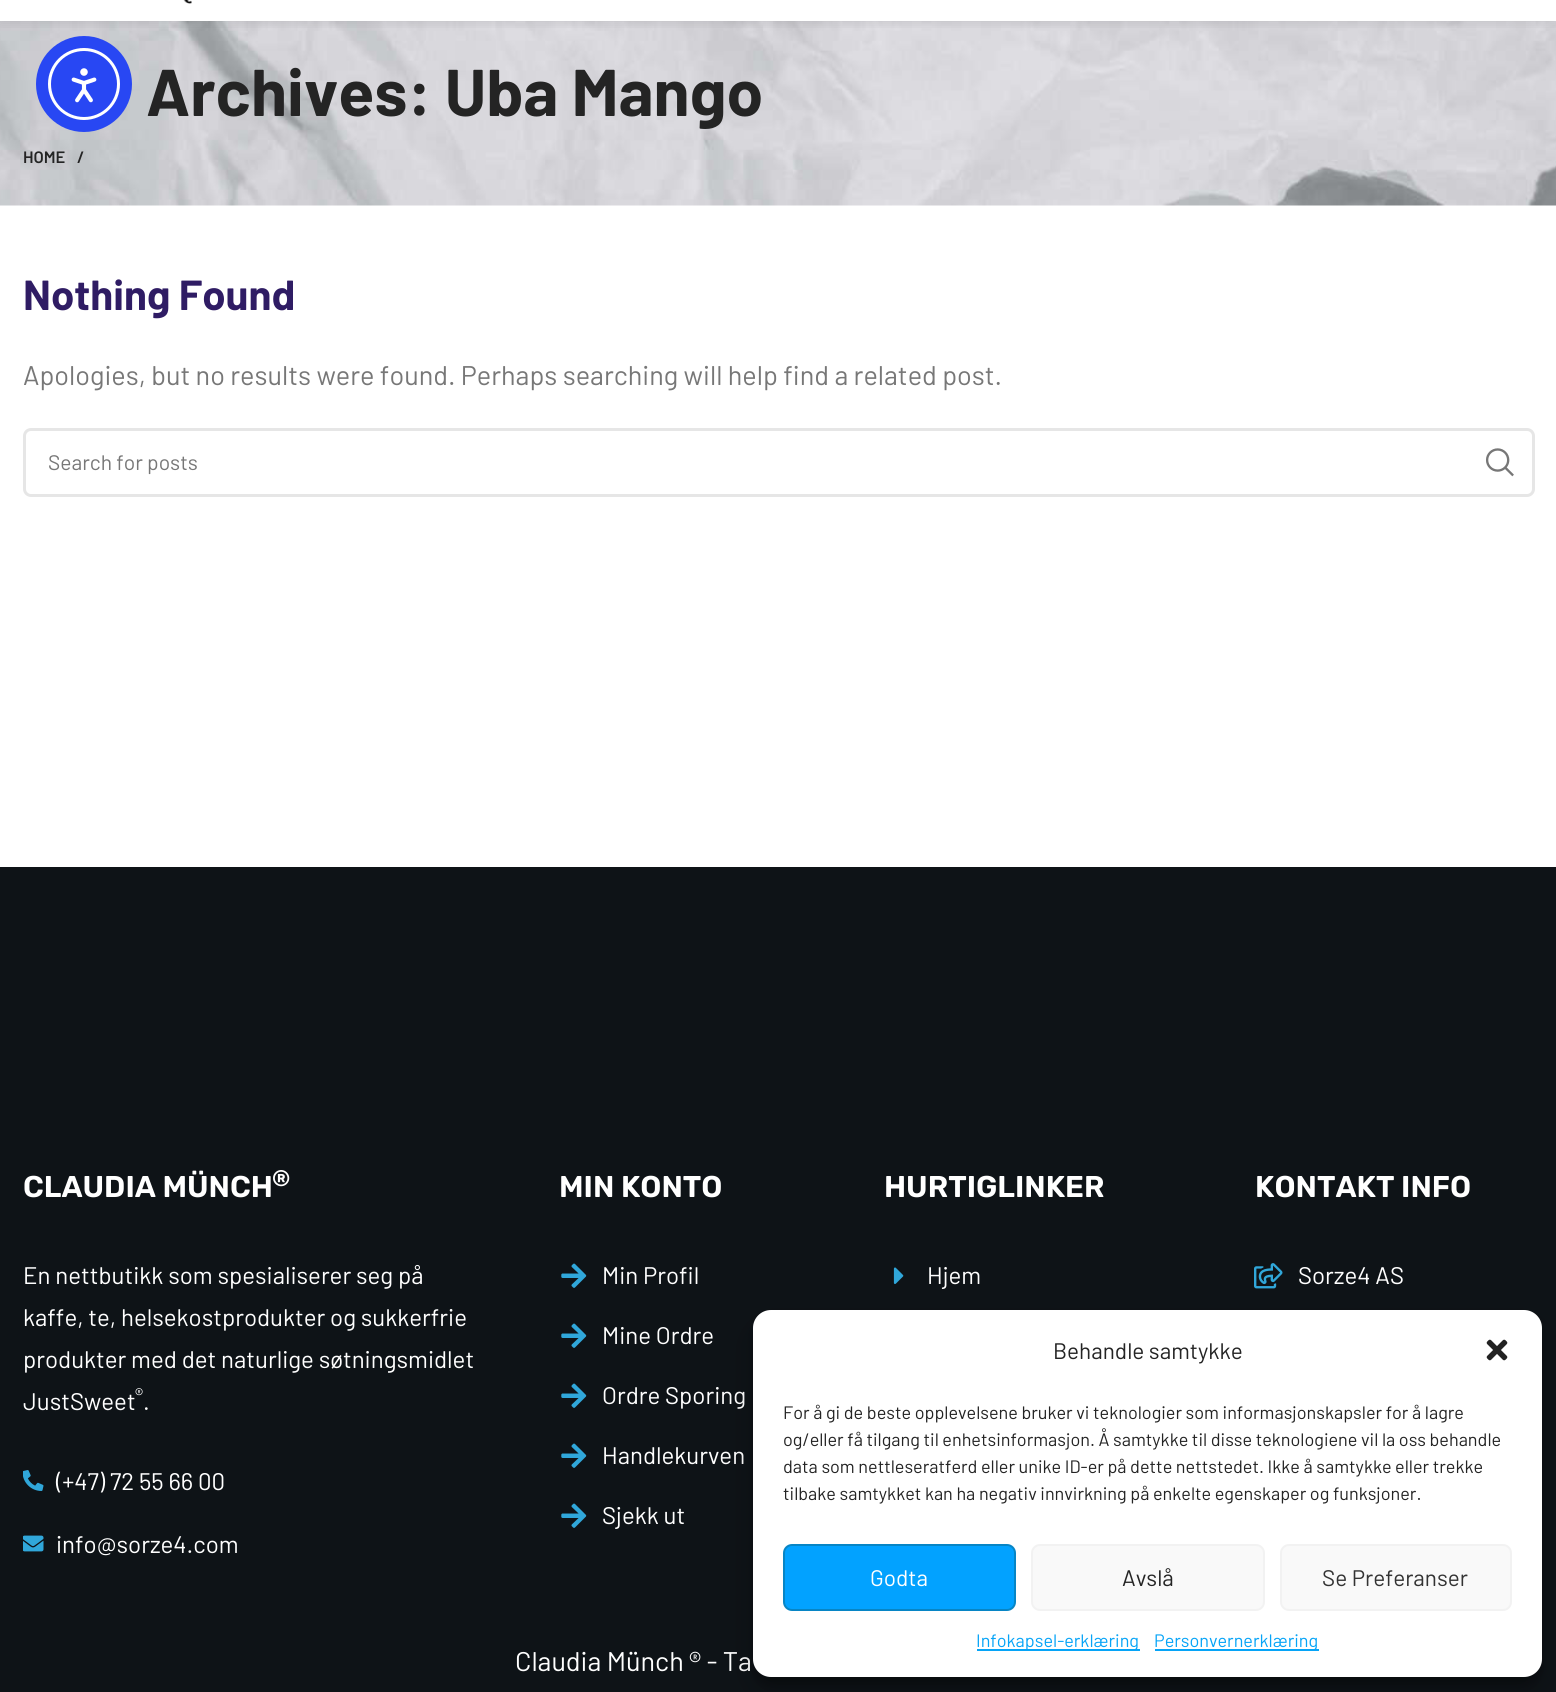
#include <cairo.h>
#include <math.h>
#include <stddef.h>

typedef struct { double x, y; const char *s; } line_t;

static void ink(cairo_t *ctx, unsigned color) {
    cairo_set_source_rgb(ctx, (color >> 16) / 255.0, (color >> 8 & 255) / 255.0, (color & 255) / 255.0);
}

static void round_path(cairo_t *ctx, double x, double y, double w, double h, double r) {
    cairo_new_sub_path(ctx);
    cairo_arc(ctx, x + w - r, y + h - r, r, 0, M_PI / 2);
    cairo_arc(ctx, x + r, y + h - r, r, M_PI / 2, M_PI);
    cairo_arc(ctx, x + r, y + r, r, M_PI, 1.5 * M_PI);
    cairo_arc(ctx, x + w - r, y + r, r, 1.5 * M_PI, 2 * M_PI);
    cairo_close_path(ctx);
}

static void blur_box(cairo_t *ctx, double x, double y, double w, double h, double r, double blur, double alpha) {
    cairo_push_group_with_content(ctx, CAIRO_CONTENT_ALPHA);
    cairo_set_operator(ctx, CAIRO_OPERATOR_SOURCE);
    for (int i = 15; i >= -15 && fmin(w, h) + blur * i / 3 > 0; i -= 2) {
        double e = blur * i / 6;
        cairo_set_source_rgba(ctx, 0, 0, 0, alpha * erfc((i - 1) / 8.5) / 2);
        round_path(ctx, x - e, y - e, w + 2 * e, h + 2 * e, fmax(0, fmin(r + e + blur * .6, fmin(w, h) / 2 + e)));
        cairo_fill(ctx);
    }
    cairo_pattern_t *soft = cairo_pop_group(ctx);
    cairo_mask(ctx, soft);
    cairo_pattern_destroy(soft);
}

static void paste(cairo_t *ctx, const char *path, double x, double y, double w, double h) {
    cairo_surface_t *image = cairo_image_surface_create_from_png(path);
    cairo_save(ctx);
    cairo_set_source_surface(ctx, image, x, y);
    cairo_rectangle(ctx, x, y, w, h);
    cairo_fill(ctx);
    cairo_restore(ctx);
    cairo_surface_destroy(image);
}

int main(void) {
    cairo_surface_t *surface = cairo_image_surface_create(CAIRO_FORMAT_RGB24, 1556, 1692);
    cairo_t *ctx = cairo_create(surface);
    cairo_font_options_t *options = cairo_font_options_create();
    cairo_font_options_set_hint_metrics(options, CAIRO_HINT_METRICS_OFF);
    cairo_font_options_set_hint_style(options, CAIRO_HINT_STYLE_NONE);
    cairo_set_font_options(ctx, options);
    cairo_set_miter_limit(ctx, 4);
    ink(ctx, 0xFFFFFF);
    cairo_paint(ctx);
    paste(ctx, "media/3.png", 0, 21, 1556, 185);
    cairo_save(ctx);
    cairo_rectangle(ctx, 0, 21, 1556, 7);
    cairo_clip(ctx);
    ink(ctx, 0x000000);
    blur_box(ctx, 0, -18, 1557, 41, 0, 6, 0.1);
    cairo_restore(ctx);
    ink(ctx, 0x2847F3);
    cairo_arc(ctx, 84, 84, 48, 0, 2 * M_PI);
    cairo_fill(ctx);
    cairo_arc(ctx, 84, 84, 34.5, 0, 2 * M_PI);
    ink(ctx, 0xFFFFFF);
    cairo_set_line_width(ctx, 3);
    cairo_stroke(ctx);
    paste(ctx, "media/1.png", 71, 68, 26, 35);
    paste(ctx, "media/2.png", 183, 0, 9, 4);
    cairo_select_font_face(ctx, "Barlow", CAIRO_FONT_SLANT_NORMAL, CAIRO_FONT_WEIGHT_BOLD);
    cairo_set_font_size(ctx, 66);
    ink(ctx, 0x242424);
    cairo_move_to(ctx, 146, 116);
    cairo_show_text(ctx, "Archives: Uba Mango");
    cairo_select_font_face(ctx, "Barlow SemiBold", CAIRO_FONT_SLANT_NORMAL, CAIRO_FONT_WEIGHT_NORMAL);
    cairo_set_font_size(ctx, 16.5);
    cairo_move_to(ctx, 23, 163);
    cairo_show_text(ctx, "HOME");
    cairo_move_to(ctx, 77, 163);
    cairo_show_text(ctx, "/");
    cairo_select_font_face(ctx, "Barlow", CAIRO_FONT_SLANT_NORMAL, CAIRO_FONT_WEIGHT_BOLD);
    cairo_set_font_size(ctx, 42);
    ink(ctx, 0x2F1C64);
    cairo_move_to(ctx, 23, 310);
    cairo_show_text(ctx, "Nothing Found");
    cairo_select_font_face(ctx, "Barlow", CAIRO_FONT_SLANT_NORMAL, CAIRO_FONT_WEIGHT_NORMAL);
    cairo_set_font_size(ctx, 27);
    ink(ctx, 0x777777);
    cairo_move_to(ctx, 23, 385);
    cairo_show_text(ctx, "Apologies, but no results were found. Perhaps searching will help find a related post.");
    round_path(ctx, 24.5, 429.5, 1509, 66, 6.5);
    ink(ctx, 0xE6E6E6);
    cairo_stroke(ctx);
    cairo_set_font_size(ctx, 21);
    ink(ctx, 0x777777);
    cairo_move_to(ctx, 48, 470);
    cairo_show_text(ctx, "Search for posts");
    paste(ctx, "media/4.png", 1486, 448, 28, 29);
    ink(ctx, 0x0E1317);
    cairo_rectangle(ctx, 0, 867, 1556, 825);
    cairo_fill(ctx);
    cairo_select_font_face(ctx, "Rubik SemiBold", CAIRO_FONT_SLANT_NORMAL, CAIRO_FONT_WEIGHT_NORMAL);
    cairo_set_font_size(ctx, 30);
    ink(ctx, 0xFFFFFF);
    cairo_move_to(ctx, 23, 1197);
    cairo_show_text(ctx, "CLAUDIA MÜNCH");
    cairo_set_font_size(ctx, 22.5);
    cairo_move_to(ctx, 272, 1186);
    cairo_show_text(ctx, "®");
    cairo_select_font_face(ctx, "Barlow", CAIRO_FONT_SLANT_NORMAL, CAIRO_FONT_WEIGHT_NORMAL);
    cairo_set_font_size(ctx, 24);
    {
        static const line_t items[] = {
            {23, 1284, "En nettbutikk som spesialiserer seg på"},
            {23, 1326, "kaffe, te, helsekostprodukter og sukkerfrie"},
            {23, 1368, "produkter med det naturlige søtningsmidlet"},
        };
        for (size_t i = 0; i < sizeof items / sizeof *items; i++) {
            cairo_move_to(ctx, items[i].x, items[i].y);
            cairo_show_text(ctx, items[i].s);
        }
    }
    cairo_set_font_size(ctx, 18);
    cairo_move_to(ctx, 135, 1401);
    cairo_show_text(ctx, "®");
    cairo_set_font_size(ctx, 24);
    cairo_move_to(ctx, 23, 1410);
    cairo_show_text(ctx, "JustSweet");
    cairo_move_to(ctx, 143, 1410);
    cairo_show_text(ctx, ".");
    paste(ctx, "media/5.png", 23, 1470, 21, 21);
    cairo_move_to(ctx, 56, 1490);
    cairo_show_text(ctx, "(+47) 72 55 66 00");
    paste(ctx, "media/6.png", 23, 1535, 21, 17);
    cairo_move_to(ctx, 56, 1553);
    cairo_show_text(ctx, "info@sorze4.com");
    cairo_select_font_face(ctx, "Rubik SemiBold", CAIRO_FONT_SLANT_NORMAL, CAIRO_FONT_WEIGHT_NORMAL);
    cairo_set_font_size(ctx, 30);
    cairo_move_to(ctx, 559, 1197);
    cairo_show_text(ctx, "MIN KONTO");
    paste(ctx, "media/7.png", 561, 1263, 26, 25);
    cairo_select_font_face(ctx, "Barlow", CAIRO_FONT_SLANT_NORMAL, CAIRO_FONT_WEIGHT_NORMAL);
    cairo_set_font_size(ctx, 24);
    cairo_move_to(ctx, 602, 1284);
    cairo_show_text(ctx, "Min Profil");
    paste(ctx, "media/7.png", 561, 1323, 26, 25);
    cairo_move_to(ctx, 602, 1344);
    cairo_show_text(ctx, "Mine Ordre");
    paste(ctx, "media/7.png", 561, 1383, 26, 25);
    cairo_move_to(ctx, 602, 1404);
    cairo_show_text(ctx, "Ordre Sporing");
    paste(ctx, "media/7.png", 561, 1443, 26, 25);
    cairo_move_to(ctx, 602, 1464);
    cairo_show_text(ctx, "Handlekurven");
    paste(ctx, "media/7.png", 561, 1503, 26, 25);
    cairo_move_to(ctx, 602, 1524);
    cairo_show_text(ctx, "Sjekk ut");
    cairo_select_font_face(ctx, "Rubik SemiBold", CAIRO_FONT_SLANT_NORMAL, CAIRO_FONT_WEIGHT_NORMAL);
    cairo_set_font_size(ctx, 30);
    cairo_move_to(ctx, 884, 1197);
    cairo_show_text(ctx, "HURTIGLINKER");
    paste(ctx, "media/8.png", 893, 1267, 11, 17);
    cairo_select_font_face(ctx, "Barlow", CAIRO_FONT_SLANT_NORMAL, CAIRO_FONT_WEIGHT_NORMAL);
    cairo_set_font_size(ctx, 24);
    cairo_move_to(ctx, 927, 1284);
    cairo_show_text(ctx, "Hjem");
    cairo_select_font_face(ctx, "Rubik SemiBold", CAIRO_FONT_SLANT_NORMAL, CAIRO_FONT_WEIGHT_NORMAL);
    cairo_set_font_size(ctx, 30);
    cairo_move_to(ctx, 1255, 1197);
    cairo_show_text(ctx, "KONTAKT INFO");
    paste(ctx, "media/9.png", 1254, 1263, 29, 26);
    cairo_select_font_face(ctx, "Barlow", CAIRO_FONT_SLANT_NORMAL, CAIRO_FONT_WEIGHT_NORMAL);
    cairo_set_font_size(ctx, 24);
    cairo_move_to(ctx, 1298, 1284);
    cairo_show_text(ctx, "Sorze4 AS");
    cairo_set_font_size(ctx, 27);
    cairo_move_to(ctx, 515, 1671);
    cairo_show_text(ctx, "Claudia Münch ® - Ta");
    ink(ctx, 0x000000);
    blur_box(ctx, 753, 1319, 789, 367, 18, 4.5, 0.23);
    blur_box(ctx, 753, 1325, 789, 367, 18, 15, 0.19);
    ink(ctx, 0xFFFFFF);
    round_path(ctx, 753, 1310, 789, 367, 18);
    cairo_fill(ctx);
    cairo_set_font_size(ctx, 22.5);
    ink(ctx, 0x242424);
    cairo_move_to(ctx, 1053, 1359);
    cairo_show_text(ctx, "Behandle samtykke");
    paste(ctx, "media/10.png", 1486, 1339, 22, 22);
    cairo_set_font_size(ctx, 18);
    {
        static const line_t items[] = {
            {783, 1419, "For å gi de beste opplevelsene bruker vi teknologier som informasjonskapsler for å lagre"},
            {783, 1446, "og/eller få tilgang til enhetsinformasjon. Å samtykke til disse teknologiene vil la oss behandle"},
            {783, 1473, "data som nettleseratferd eller unike ID-er på dette nettstedet. Ikke å samtykke eller trekke"},
            {783, 1500, "tilbake samtykket kan ha negativ innvirkning på enkelte egenskaper og funksjoner."},
        };
        for (size_t i = 0; i < sizeof items / sizeof *items; i++) {
            cairo_move_to(ctx, items[i].x, items[i].y);
            cairo_show_text(ctx, items[i].s);
        }
    }
    ink(ctx, 0x02A2FF);
    round_path(ctx, 784, 1545, 231, 65, 8);
    cairo_fill_preserve(ctx);
    ink(ctx, 0x0785C5);
    cairo_set_line_width(ctx, 2);
    cairo_stroke(ctx);
    cairo_set_font_size(ctx, 22.5);
    ink(ctx, 0xFFFFFF);
    cairo_move_to(ctx, 870, 1586);
    cairo_show_text(ctx, "Godta");
    ink(ctx, 0xF9F9F9);
    round_path(ctx, 1032, 1545, 232, 65, 8);
    cairo_fill_preserve(ctx);
    ink(ctx, 0xF2F2F2);
    cairo_stroke(ctx);
    ink(ctx, 0x242424);
    cairo_move_to(ctx, 1122, 1586);
    cairo_show_text(ctx, "Avslå");
    ink(ctx, 0xF9F9F9);
    round_path(ctx, 1281, 1545, 230, 65, 8);
    cairo_fill_preserve(ctx);
    ink(ctx, 0xF2F2F2);
    cairo_stroke(ctx);
    ink(ctx, 0x333333);
    cairo_move_to(ctx, 1322, 1586);
    cairo_show_text(ctx, "Se Preferanser");
    ink(ctx, 0x06A4F7);
    cairo_rectangle(ctx, 977, 1649, 163, 2);
    cairo_fill(ctx);
    cairo_set_font_size(ctx, 18);
    cairo_move_to(ctx, 976, 1647);
    cairo_show_text(ctx, "Infokapsel-erklæring");
    cairo_rectangle(ctx, 1155, 1649, 164, 2);
    cairo_fill(ctx);
    cairo_move_to(ctx, 1154, 1647);
    cairo_show_text(ctx, "Personvernerklæring");
    cairo_surface_write_to_png(surface, "image.png");
    cairo_font_options_destroy(options);
    cairo_destroy(ctx);
    cairo_surface_destroy(surface);
    return 0;
}
